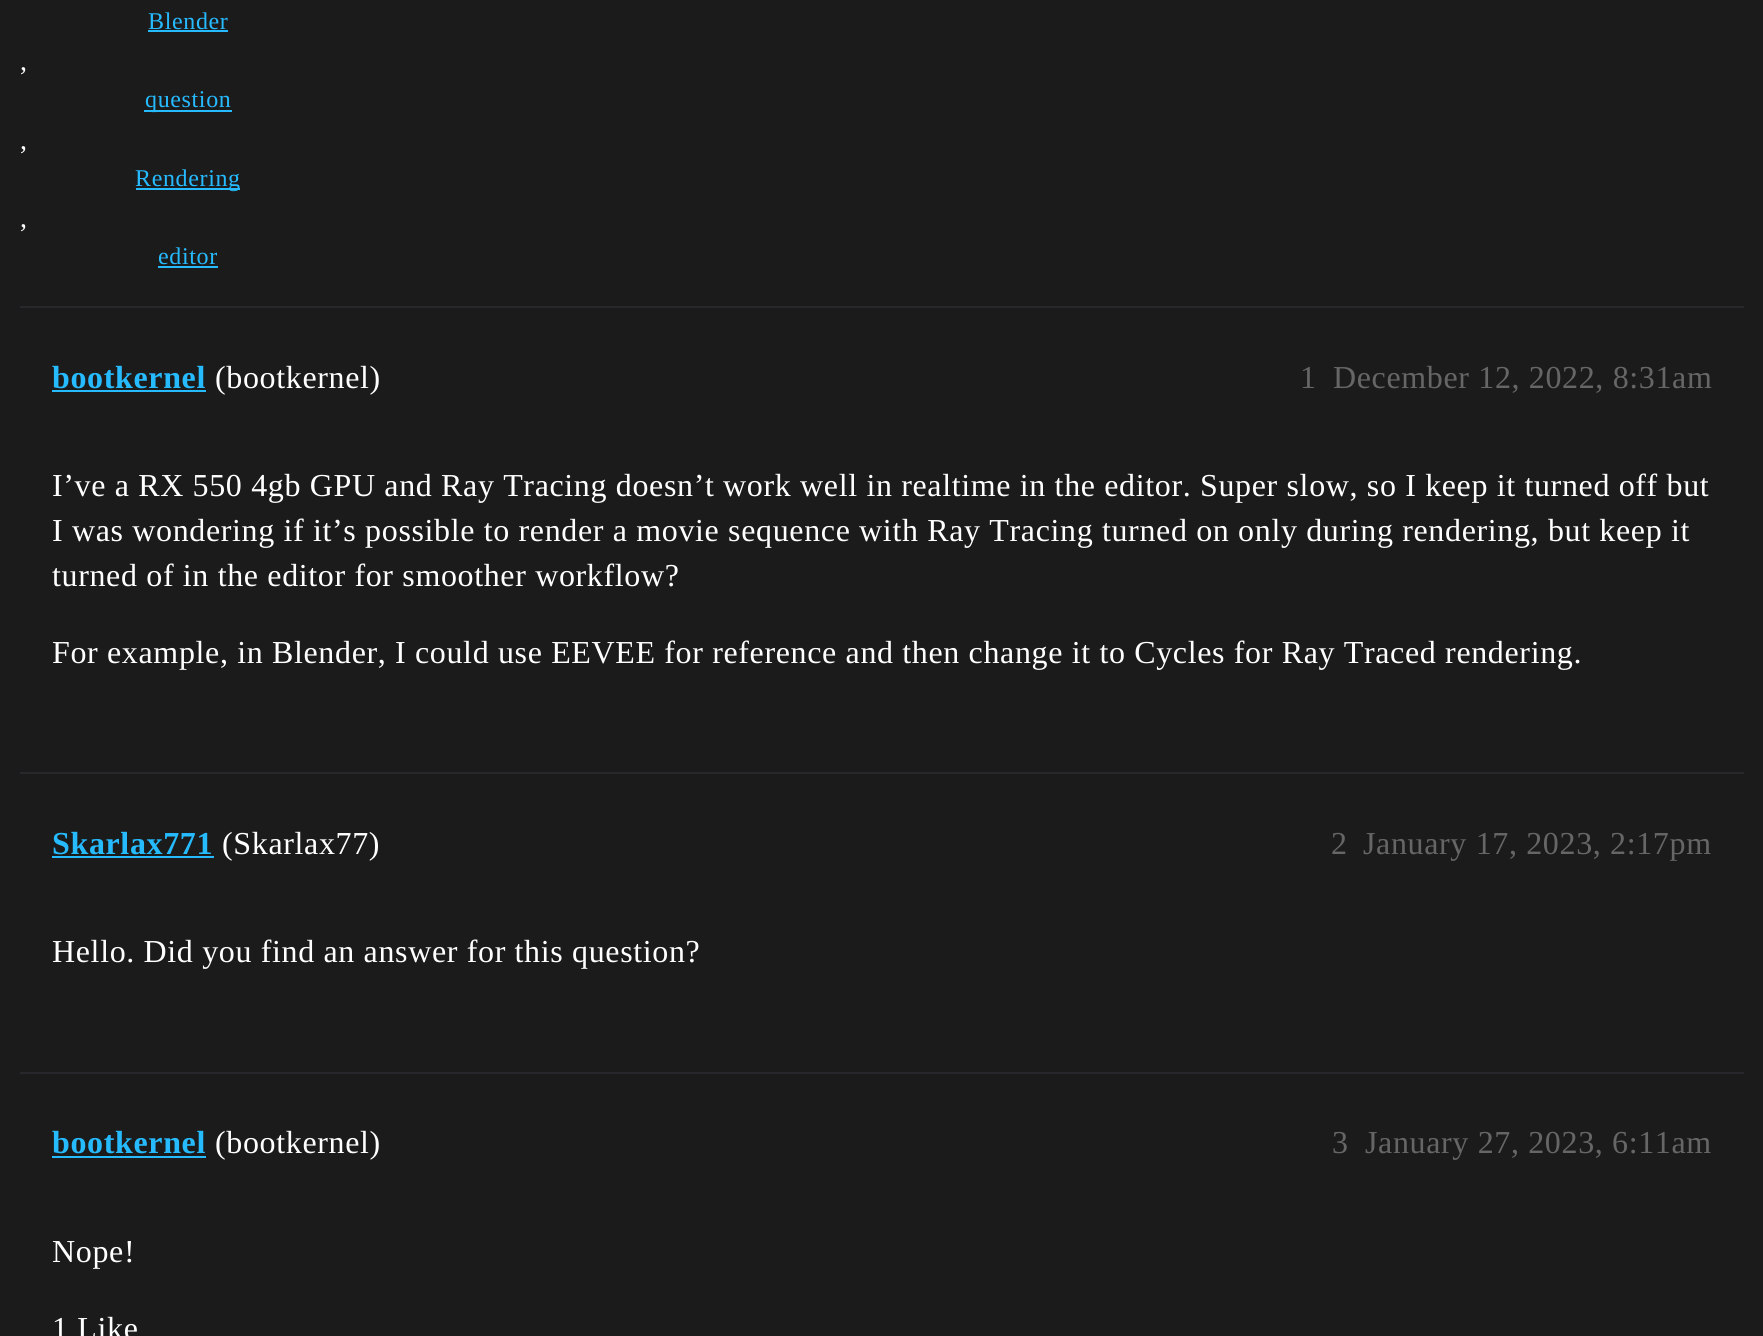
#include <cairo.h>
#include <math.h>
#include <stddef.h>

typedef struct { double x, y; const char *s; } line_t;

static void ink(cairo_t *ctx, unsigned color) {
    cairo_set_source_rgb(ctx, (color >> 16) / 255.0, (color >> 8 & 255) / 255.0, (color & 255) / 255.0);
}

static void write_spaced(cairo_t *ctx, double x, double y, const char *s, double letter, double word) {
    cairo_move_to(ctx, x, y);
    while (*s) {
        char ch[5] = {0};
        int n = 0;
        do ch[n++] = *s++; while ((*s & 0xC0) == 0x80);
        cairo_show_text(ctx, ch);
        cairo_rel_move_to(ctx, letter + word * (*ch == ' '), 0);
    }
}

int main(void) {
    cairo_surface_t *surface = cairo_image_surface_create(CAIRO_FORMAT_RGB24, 1763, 1336);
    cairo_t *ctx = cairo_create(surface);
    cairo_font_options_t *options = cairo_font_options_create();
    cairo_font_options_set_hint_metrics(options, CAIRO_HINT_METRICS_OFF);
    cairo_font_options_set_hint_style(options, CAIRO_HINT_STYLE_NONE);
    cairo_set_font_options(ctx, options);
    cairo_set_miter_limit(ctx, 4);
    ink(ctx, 0x1B1B1B);
    cairo_paint(ctx);
    cairo_select_font_face(ctx, "Liberation Serif", CAIRO_FONT_SLANT_NORMAL, CAIRO_FONT_WEIGHT_NORMAL);
    cairo_set_font_size(ctx, 24);
    ink(ctx, 0x26BBFF);
    write_spaced(ctx, 148, 29, "Blender", 0.64, 0);
    cairo_rectangle(ctx, 148, 30, 80, 2);
    cairo_fill(ctx);
    cairo_set_font_size(ctx, 28);
    ink(ctx, 0xFFFFFF);
    write_spaced(ctx, 20, 70, ",", 0.64, 0);
    ink(ctx, 0x26BBFF);
    cairo_rectangle(ctx, 144, 110, 88, 2);
    cairo_fill(ctx);
    cairo_set_font_size(ctx, 24);
    write_spaced(ctx, 145, 107, "question", 0.64, 0);
    cairo_set_font_size(ctx, 28);
    ink(ctx, 0xFFFFFF);
    write_spaced(ctx, 20, 149, ",", 0.64, 0);
    ink(ctx, 0x26BBFF);
    cairo_rectangle(ctx, 136, 188, 104, 2);
    cairo_fill(ctx);
    cairo_set_font_size(ctx, 24);
    write_spaced(ctx, 135, 186, "Rendering", 0.64, 0);
    cairo_set_font_size(ctx, 28);
    ink(ctx, 0xFFFFFF);
    write_spaced(ctx, 20, 227, ",", 0.64, 0);
    cairo_set_font_size(ctx, 24);
    ink(ctx, 0x26BBFF);
    write_spaced(ctx, 158, 264, "editor", 0.64, 0);
    cairo_rectangle(ctx, 158, 266, 60, 2);
    cairo_fill(ctx);
    ink(ctx, 0x28282C);
    cairo_rectangle(ctx, 20, 306, 1724, 2);
    cairo_fill(ctx);
    cairo_select_font_face(ctx, "Liberation Serif", CAIRO_FONT_SLANT_NORMAL, CAIRO_FONT_WEIGHT_BOLD);
    cairo_set_font_size(ctx, 32);
    ink(ctx, 0x26BBFF);
    write_spaced(ctx, 52, 388, "bootkernel", 0.64, 0);
    cairo_rectangle(ctx, 52, 390, 154, 2);
    cairo_fill(ctx);
    cairo_select_font_face(ctx, "Liberation Serif", CAIRO_FONT_SLANT_NORMAL, CAIRO_FONT_WEIGHT_NORMAL);
    ink(ctx, 0xFFFFFF);
    write_spaced(ctx, 215, 388, "(bootkernel)", 0.64, 0);
    ink(ctx, 0x666666);
    write_spaced(ctx, 1300, 388, "1", 0.64, 0);
    write_spaced(ctx, 1333, 388, "December 12, 2022, 8:31am", 0.64, 0);
    ink(ctx, 0xFFFFFF);
    {
        static const line_t items[] = {
            {52, 496, "I’ve a RX 550 4gb GPU and Ray Tracing doesn’t work well in realtime in the editor. Super slow, so I keep it turned off but"},
            {52, 541, "I was wondering if it’s possible to render a movie sequence with Ray Tracing turned on only during rendering, but keep it"},
            {52, 586, "turned of in the editor for smoother workflow?"},
            {52, 663, "For example, in Blender, I could use EEVEE for reference and then change it to Cycles for Ray Traced rendering."},
        };
        for (size_t i = 0; i < sizeof items / sizeof *items; i++) {
            write_spaced(ctx, items[i].x, items[i].y, items[i].s, 0.64, 0);
        }
    }
    ink(ctx, 0x28282C);
    cairo_rectangle(ctx, 20, 772, 1724, 2);
    cairo_fill(ctx);
    cairo_select_font_face(ctx, "Liberation Serif", CAIRO_FONT_SLANT_NORMAL, CAIRO_FONT_WEIGHT_BOLD);
    ink(ctx, 0x26BBFF);
    write_spaced(ctx, 52, 854, "Skarlax771", 0.64, 0);
    cairo_rectangle(ctx, 52, 856, 162, 2);
    cairo_fill(ctx);
    cairo_select_font_face(ctx, "Liberation Serif", CAIRO_FONT_SLANT_NORMAL, CAIRO_FONT_WEIGHT_NORMAL);
    ink(ctx, 0xFFFFFF);
    write_spaced(ctx, 222, 854, "(Skarlax77)", 0.64, 0);
    ink(ctx, 0x666666);
    write_spaced(ctx, 1331, 854, "2", 0.64, 0);
    write_spaced(ctx, 1363, 854, "January 17, 2023, 2:17pm", 0.64, 0);
    ink(ctx, 0xFFFFFF);
    write_spaced(ctx, 52, 962, "Hello. Did you find an answer for this question?", 0.64, 0);
    ink(ctx, 0x28282C);
    cairo_rectangle(ctx, 20, 1072, 1724, 2);
    cairo_fill(ctx);
    cairo_select_font_face(ctx, "Liberation Serif", CAIRO_FONT_SLANT_NORMAL, CAIRO_FONT_WEIGHT_BOLD);
    ink(ctx, 0x26BBFF);
    write_spaced(ctx, 52, 1153, "bootkernel", 0.64, 0);
    cairo_rectangle(ctx, 52, 1156, 154, 2);
    cairo_fill(ctx);
    cairo_select_font_face(ctx, "Liberation Serif", CAIRO_FONT_SLANT_NORMAL, CAIRO_FONT_WEIGHT_NORMAL);
    ink(ctx, 0xFFFFFF);
    write_spaced(ctx, 215, 1153, "(bootkernel)", 0.64, 0);
    ink(ctx, 0x666666);
    write_spaced(ctx, 1332, 1153, "3", 0.64, 0);
    write_spaced(ctx, 1365, 1153, "January 27, 2023, 6:11am", 0.64, 0);
    ink(ctx, 0xFFFFFF);
    write_spaced(ctx, 52, 1262, "Nope!", 0.64, 0);
    write_spaced(ctx, 52, 1339, "1 Like", 0.64, 0);
    cairo_surface_write_to_png(surface, "image.png");
    cairo_font_options_destroy(options);
    cairo_destroy(ctx);
    cairo_surface_destroy(surface);
    return 0;
}
